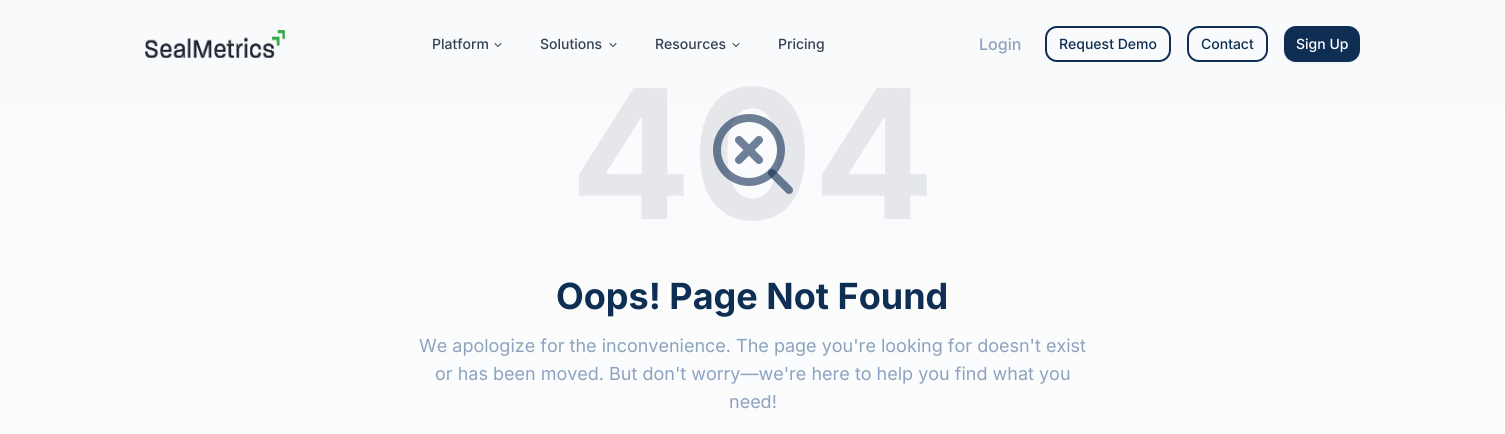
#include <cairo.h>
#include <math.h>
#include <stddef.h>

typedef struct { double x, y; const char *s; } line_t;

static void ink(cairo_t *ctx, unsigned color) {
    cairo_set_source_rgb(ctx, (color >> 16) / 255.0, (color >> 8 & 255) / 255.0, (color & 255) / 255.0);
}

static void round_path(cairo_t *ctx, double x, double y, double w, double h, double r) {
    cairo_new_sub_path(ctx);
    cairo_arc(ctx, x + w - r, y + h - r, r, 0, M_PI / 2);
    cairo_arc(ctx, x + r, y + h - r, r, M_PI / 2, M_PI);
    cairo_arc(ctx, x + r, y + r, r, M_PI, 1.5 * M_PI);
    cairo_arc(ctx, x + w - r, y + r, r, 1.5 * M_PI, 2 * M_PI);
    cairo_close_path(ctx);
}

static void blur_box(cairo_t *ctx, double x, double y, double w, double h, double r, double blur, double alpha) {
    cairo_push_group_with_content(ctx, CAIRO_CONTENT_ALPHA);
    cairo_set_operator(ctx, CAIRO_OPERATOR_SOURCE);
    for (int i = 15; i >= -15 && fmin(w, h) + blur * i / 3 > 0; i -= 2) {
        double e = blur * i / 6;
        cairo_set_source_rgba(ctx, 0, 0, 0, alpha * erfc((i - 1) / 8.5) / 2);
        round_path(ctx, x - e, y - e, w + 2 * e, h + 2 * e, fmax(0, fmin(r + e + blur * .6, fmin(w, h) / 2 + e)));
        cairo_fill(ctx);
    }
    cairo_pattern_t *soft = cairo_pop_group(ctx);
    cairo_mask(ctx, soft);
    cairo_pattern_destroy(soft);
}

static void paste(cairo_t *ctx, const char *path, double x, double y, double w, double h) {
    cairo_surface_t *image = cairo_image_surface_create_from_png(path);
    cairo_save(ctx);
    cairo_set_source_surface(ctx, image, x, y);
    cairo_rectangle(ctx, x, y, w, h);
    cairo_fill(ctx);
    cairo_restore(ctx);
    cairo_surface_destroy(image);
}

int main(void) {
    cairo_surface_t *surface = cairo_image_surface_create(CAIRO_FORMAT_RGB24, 1505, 434);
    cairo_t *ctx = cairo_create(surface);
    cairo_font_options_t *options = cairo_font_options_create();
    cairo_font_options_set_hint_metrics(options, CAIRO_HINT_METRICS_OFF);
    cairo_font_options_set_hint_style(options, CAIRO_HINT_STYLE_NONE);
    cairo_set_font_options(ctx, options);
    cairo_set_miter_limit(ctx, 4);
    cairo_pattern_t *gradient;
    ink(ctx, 0xFFFFFF);
    cairo_paint(ctx);
    gradient = cairo_pattern_create_linear(753, 0, 753, 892);
    cairo_pattern_add_color_stop_rgba(gradient, 0, 0.976, 0.98, 0.984, 1);
    cairo_pattern_add_color_stop_rgba(gradient, 1, 1, 1, 1, 1);
    cairo_set_source(ctx, gradient);
    cairo_pattern_destroy(gradient);
    cairo_rectangle(ctx, 0, 0, 1505, 434);
    cairo_fill(ctx);
    paste(ctx, "media/1.png", 145, 30, 140, 28);
    cairo_select_font_face(ctx, "Inter Medium", CAIRO_FONT_SLANT_NORMAL, CAIRO_FONT_WEIGHT_NORMAL);
    cairo_set_font_size(ctx, 14);
    ink(ctx, 0x344256);
    cairo_move_to(ctx, 432, 49);
    cairo_show_text(ctx, "Platform");
    cairo_new_path(ctx);
    cairo_move_to(ctx, 495, 43.5);
    cairo_line_to(ctx, 498, 46.5);
    cairo_line_to(ctx, 501, 43.5);
    cairo_set_line_width(ctx, 1);
    cairo_set_line_cap(ctx, CAIRO_LINE_CAP_ROUND);
    cairo_set_line_join(ctx, CAIRO_LINE_JOIN_ROUND);
    cairo_stroke(ctx);
    cairo_move_to(ctx, 540, 49);
    cairo_show_text(ctx, "Solutions");
    cairo_new_path(ctx);
    cairo_move_to(ctx, 610, 43.5);
    cairo_line_to(ctx, 613, 46.5);
    cairo_line_to(ctx, 616, 43.5);
    cairo_stroke(ctx);
    cairo_move_to(ctx, 655, 49);
    cairo_show_text(ctx, "Resources");
    cairo_new_path(ctx);
    cairo_move_to(ctx, 733, 43.5);
    cairo_line_to(ctx, 736, 46.5);
    cairo_line_to(ctx, 739, 43.5);
    cairo_stroke(ctx);
    cairo_move_to(ctx, 778, 49);
    cairo_show_text(ctx, "Pricing");
    cairo_set_font_size(ctx, 16);
    ink(ctx, 0x8DA2BF);
    cairo_move_to(ctx, 979, 50);
    cairo_show_text(ctx, "Login");
    round_path(ctx, 1046, 27, 124, 34, 11);
    ink(ctx, 0x0F2E53);
    cairo_set_line_width(ctx, 2);
    cairo_set_line_cap(ctx, CAIRO_LINE_CAP_BUTT);
    cairo_set_line_join(ctx, CAIRO_LINE_JOIN_MITER);
    cairo_stroke(ctx);
    cairo_set_font_size(ctx, 14);
    cairo_move_to(ctx, 1059, 49);
    cairo_show_text(ctx, "Request Demo");
    round_path(ctx, 1188, 27, 79, 34, 11);
    cairo_stroke(ctx);
    cairo_move_to(ctx, 1201, 49);
    cairo_show_text(ctx, "Contact");
    ink(ctx, 0x000000);
    blur_box(ctx, 1284, 27, 76, 36, 12, 1, 0.05);
    ink(ctx, 0x0F2E53);
    round_path(ctx, 1284, 26, 76, 36, 12);
    cairo_fill(ctx);
    ink(ctx, 0xFFFFFF);
    cairo_move_to(ctx, 1296, 49);
    cairo_show_text(ctx, "Sign Up");
    cairo_select_font_face(ctx, "Inter", CAIRO_FONT_SLANT_NORMAL, CAIRO_FONT_WEIGHT_BOLD);
    cairo_set_font_size(ctx, 180);
    ink(ctx, 0xE5E7EB);
    cairo_move_to(ctx, 570, 219);
    cairo_show_text(ctx, "404");
    cairo_new_path(ctx);
    cairo_move_to(ctx, 759, 140);
    cairo_line_to(ctx, 739, 160);
    cairo_move_to(ctx, 739, 140);
    cairo_line_to(ctx, 759, 160);
    ink(ctx, 0x6D8097);
    cairo_set_line_width(ctx, 8);
    cairo_set_line_cap(ctx, CAIRO_LINE_CAP_ROUND);
    cairo_set_line_join(ctx, CAIRO_LINE_JOIN_ROUND);
    cairo_stroke(ctx);
    cairo_arc(ctx, 749, 150, 32, 0, 2 * M_PI);
    cairo_set_source_rgba(ctx, 0.059, 0.18, 0.325, 0.6);
    cairo_set_line_cap(ctx, CAIRO_LINE_CAP_BUTT);
    cairo_set_line_join(ctx, CAIRO_LINE_JOIN_MITER);
    cairo_stroke(ctx);
    cairo_new_path(ctx);
    cairo_move_to(ctx, 789, 190);
    cairo_line_to(ctx, 772, 173);
    cairo_set_line_cap(ctx, CAIRO_LINE_CAP_ROUND);
    cairo_set_line_join(ctx, CAIRO_LINE_JOIN_ROUND);
    cairo_stroke(ctx);
    cairo_set_font_size(ctx, 36);
    ink(ctx, 0x0F2E53);
    cairo_move_to(ctx, 556, 309);
    cairo_show_text(ctx, "Oops! Page Not Found");
    cairo_select_font_face(ctx, "Inter", CAIRO_FONT_SLANT_NORMAL, CAIRO_FONT_WEIGHT_NORMAL);
    cairo_set_font_size(ctx, 18);
    ink(ctx, 0x8DA2BF);
    {
        static const line_t items[] = {
            {419, 352, "We apologize for the inconvenience. The page you're looking for doesn't exist"},
            {435, 380, "or has been moved. But don't worry—we're here to help you find what you"},
            {729, 408, "need!"},
        };
        for (size_t i = 0; i < sizeof items / sizeof *items; i++) {
            cairo_move_to(ctx, items[i].x, items[i].y);
            cairo_show_text(ctx, items[i].s);
        }
    }
    cairo_surface_write_to_png(surface, "image.png");
    cairo_font_options_destroy(options);
    cairo_destroy(ctx);
    cairo_surface_destroy(surface);
    return 0;
}
